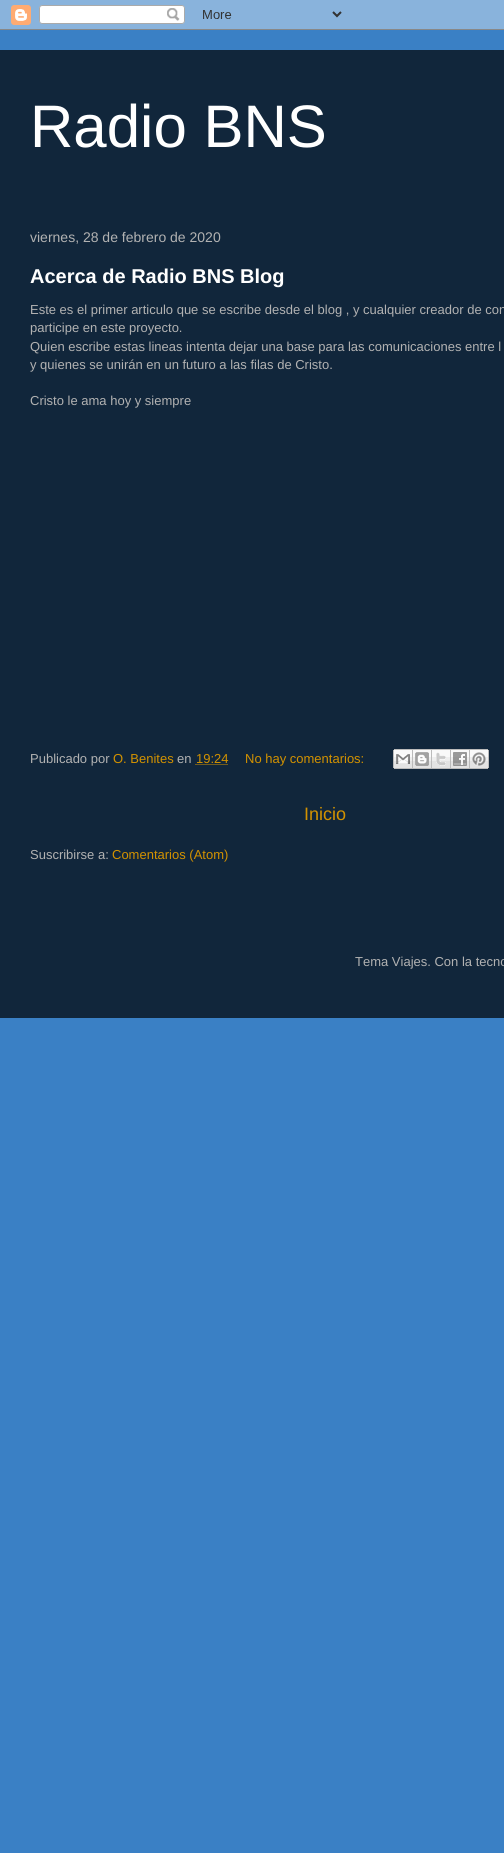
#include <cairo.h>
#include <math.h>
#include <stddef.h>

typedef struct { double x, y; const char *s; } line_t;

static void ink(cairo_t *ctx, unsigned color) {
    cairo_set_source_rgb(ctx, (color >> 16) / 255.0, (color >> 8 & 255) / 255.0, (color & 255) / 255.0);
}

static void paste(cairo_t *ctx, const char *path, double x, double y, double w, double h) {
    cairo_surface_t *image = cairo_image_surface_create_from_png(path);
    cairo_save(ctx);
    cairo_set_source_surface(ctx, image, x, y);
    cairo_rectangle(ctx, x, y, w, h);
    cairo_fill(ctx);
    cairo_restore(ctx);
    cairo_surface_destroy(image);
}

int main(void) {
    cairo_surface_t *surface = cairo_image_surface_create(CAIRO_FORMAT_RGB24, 504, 1853);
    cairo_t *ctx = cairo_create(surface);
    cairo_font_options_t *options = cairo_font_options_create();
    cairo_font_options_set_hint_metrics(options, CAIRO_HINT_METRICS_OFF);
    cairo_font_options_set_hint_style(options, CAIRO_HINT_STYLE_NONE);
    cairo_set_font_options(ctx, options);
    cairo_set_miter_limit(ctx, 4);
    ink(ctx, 0x3A80C5);
    cairo_paint(ctx);
    paste(ctx, "media/1.png", 0, 0, 504, 30);
    ink(ctx, 0x11263B);
    cairo_rectangle(ctx, 0, 50, 504, 968);
    cairo_fill(ctx);
    cairo_select_font_face(ctx, "Liberation Sans", CAIRO_FONT_SLANT_NORMAL, CAIRO_FONT_WEIGHT_NORMAL);
    cairo_set_font_size(ctx, 60);
    ink(ctx, 0xFFFFFF);
    cairo_move_to(ctx, 30, 147);
    cairo_show_text(ctx, "Radio BNS");
    cairo_set_font_size(ctx, 14);
    ink(ctx, 0xB2B2B2);
    cairo_move_to(ctx, 30, 242);
    cairo_show_text(ctx, "viernes, 28 de febrero de 2020");
    cairo_select_font_face(ctx, "Liberation Sans", CAIRO_FONT_SLANT_NORMAL, CAIRO_FONT_WEIGHT_BOLD);
    cairo_set_font_size(ctx, 20);
    ink(ctx, 0xFFFFFF);
    cairo_move_to(ctx, 30, 283);
    cairo_show_text(ctx, "Acerca de Radio BNS Blog");
    cairo_select_font_face(ctx, "Liberation Sans", CAIRO_FONT_SLANT_NORMAL, CAIRO_FONT_WEIGHT_NORMAL);
    cairo_set_font_size(ctx, 13);
    ink(ctx, 0xB2B2B2);
    {
        static const line_t items[] = {
            {30, 314, "Este es el primer articulo que se escribe desde el blog , y cualquier creador de con"},
            {30, 332, "participe en este proyecto."},
            {30, 351, "Quien escribe estas lineas intenta dejar una base para las comunicaciones entre l"},
            {30, 369, "y quienes se unirán en un futuro a las filas de Cristo."},
            {30, 405, "Cristo le ama hoy y siempre"},
            {30, 763, "Publicado por"},
        };
        for (size_t i = 0; i < sizeof items / sizeof *items; i++) {
            cairo_move_to(ctx, items[i].x, items[i].y);
            cairo_show_text(ctx, items[i].s);
        }
    }
    ink(ctx, 0xD39200);
    cairo_move_to(ctx, 113, 763);
    cairo_show_text(ctx, "O. Benites");
    ink(ctx, 0xB2B2B2);
    cairo_move_to(ctx, 177, 763);
    cairo_show_text(ctx, "en");
    cairo_new_path(ctx);
    cairo_move_to(ctx, 195.5, 764.5);
    cairo_line_to(ctx, 228, 764.5);
    ink(ctx, 0xD39200);
    cairo_set_line_width(ctx, 1);
    cairo_set_dash(ctx, (double[]){1, 1}, 2, 0);
    cairo_stroke(ctx);
    cairo_move_to(ctx, 196, 763);
    cairo_show_text(ctx, "19:24");
    cairo_move_to(ctx, 245, 763);
    cairo_show_text(ctx, "No hay comentarios:");
    paste(ctx, "media/2.png", 393, 749, 20, 20);
    paste(ctx, "media/3.png", 413, 749, 19, 20);
    paste(ctx, "media/4.png", 432, 749, 19, 20);
    paste(ctx, "media/5.png", 451, 749, 19, 20);
    paste(ctx, "media/6.png", 470, 749, 19, 20);
    cairo_set_font_size(ctx, 18);
    cairo_move_to(ctx, 304, 820);
    cairo_show_text(ctx, "Inicio");
    cairo_set_font_size(ctx, 13);
    ink(ctx, 0xB2B2B2);
    cairo_move_to(ctx, 30, 859);
    cairo_show_text(ctx, "Suscribirse a:");
    ink(ctx, 0xD39200);
    cairo_move_to(ctx, 112, 859);
    cairo_show_text(ctx, "Comentarios (Atom)");
    ink(ctx, 0xB2B2B2);
    cairo_move_to(ctx, 355, 966);
    cairo_show_text(ctx, "Tema Viajes. Con la tecno");
    cairo_surface_write_to_png(surface, "image.png");
    cairo_font_options_destroy(options);
    cairo_destroy(ctx);
    cairo_surface_destroy(surface);
    return 0;
}
